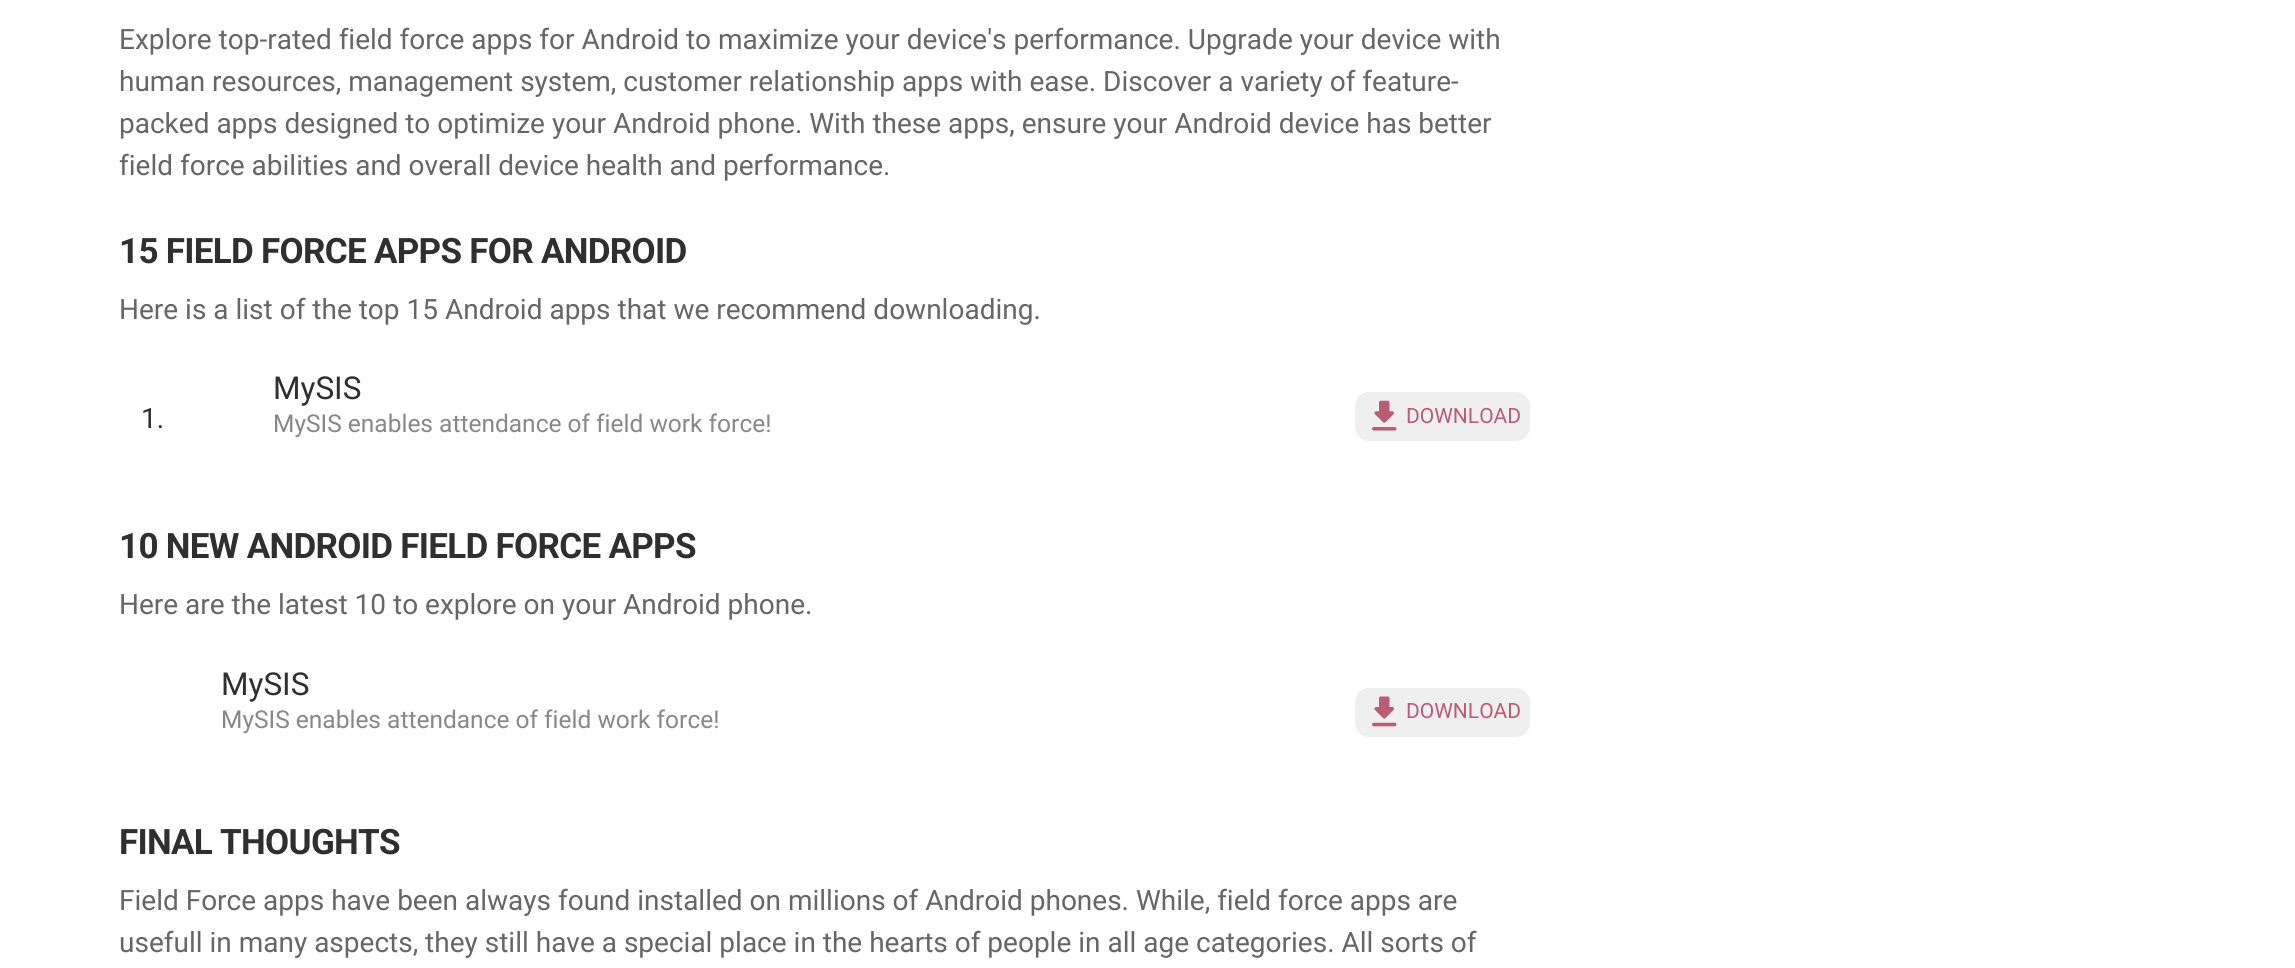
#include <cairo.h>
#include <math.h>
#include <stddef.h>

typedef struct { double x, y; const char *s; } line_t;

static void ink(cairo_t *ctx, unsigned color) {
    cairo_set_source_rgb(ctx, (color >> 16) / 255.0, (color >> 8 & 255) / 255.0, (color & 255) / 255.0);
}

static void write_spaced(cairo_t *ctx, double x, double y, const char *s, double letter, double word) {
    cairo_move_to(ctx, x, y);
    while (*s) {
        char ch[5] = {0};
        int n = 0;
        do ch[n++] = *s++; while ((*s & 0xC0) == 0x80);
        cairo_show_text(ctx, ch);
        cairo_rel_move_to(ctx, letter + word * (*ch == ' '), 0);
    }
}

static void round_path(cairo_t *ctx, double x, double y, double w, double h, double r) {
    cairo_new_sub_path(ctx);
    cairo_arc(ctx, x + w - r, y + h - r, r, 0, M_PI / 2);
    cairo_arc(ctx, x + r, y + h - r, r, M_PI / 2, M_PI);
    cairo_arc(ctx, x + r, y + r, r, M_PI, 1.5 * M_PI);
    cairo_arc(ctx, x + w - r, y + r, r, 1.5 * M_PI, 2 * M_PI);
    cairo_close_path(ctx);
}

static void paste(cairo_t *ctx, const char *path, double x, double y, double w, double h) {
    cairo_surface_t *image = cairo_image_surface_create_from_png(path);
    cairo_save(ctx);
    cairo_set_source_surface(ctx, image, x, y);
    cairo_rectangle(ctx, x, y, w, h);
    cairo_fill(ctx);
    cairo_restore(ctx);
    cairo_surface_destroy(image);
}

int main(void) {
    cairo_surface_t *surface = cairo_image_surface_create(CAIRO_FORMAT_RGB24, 2295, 968);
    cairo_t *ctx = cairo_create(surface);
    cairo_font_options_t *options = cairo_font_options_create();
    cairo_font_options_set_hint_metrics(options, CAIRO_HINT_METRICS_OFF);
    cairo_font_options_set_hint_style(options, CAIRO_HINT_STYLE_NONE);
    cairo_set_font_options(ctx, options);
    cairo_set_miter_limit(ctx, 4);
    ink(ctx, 0xFFFFFF);
    cairo_paint(ctx);
    cairo_select_font_face(ctx, "Roboto", CAIRO_FONT_SLANT_NORMAL, CAIRO_FONT_WEIGHT_NORMAL);
    cairo_set_font_size(ctx, 28);
    ink(ctx, 0x666666);
    {
        static const line_t items[] = {
            {119, 49, "Explore top-rated field force apps for Android to maximize your device's performance. Upgrade your device with"},
            {119, 91, "human resources, management system, customer relationship apps with ease. Discover a variety of feature-"},
            {119, 133, "packed apps designed to optimize your Android phone. With these apps, ensure your Android device has better"},
            {119, 175, "field force abilities and overall device health and performance."},
        };
        for (size_t i = 0; i < sizeof items / sizeof *items; i++) {
            cairo_move_to(ctx, items[i].x, items[i].y);
            cairo_show_text(ctx, items[i].s);
        }
    }
    cairo_select_font_face(ctx, "Roboto", CAIRO_FONT_SLANT_NORMAL, CAIRO_FONT_WEIGHT_BOLD);
    cairo_set_font_size(ctx, 35);
    ink(ctx, 0x2F2F2F);
    write_spaced(ctx, 119, 263, "15 FIELD FORCE APPS FOR ANDROID", -0.7, 0);
    cairo_select_font_face(ctx, "Roboto", CAIRO_FONT_SLANT_NORMAL, CAIRO_FONT_WEIGHT_NORMAL);
    cairo_set_font_size(ctx, 28);
    ink(ctx, 0x666666);
    cairo_move_to(ctx, 119, 319);
    cairo_show_text(ctx, "Here is a list of the top 15 Android apps that we recommend downloading.");
    ink(ctx, 0x2F2F2F);
    cairo_move_to(ctx, 141, 428);
    cairo_show_text(ctx, "1.");
    cairo_set_font_size(ctx, 31.5);
    cairo_move_to(ctx, 273, 399);
    cairo_show_text(ctx, "MySIS");
    cairo_set_font_size(ctx, 24.5);
    ink(ctx, 0x888888);
    cairo_move_to(ctx, 273, 432);
    cairo_show_text(ctx, "MySIS enables attendance of field work force!");
    ink(ctx, 0xEFEFEF);
    round_path(ctx, 1355, 392, 175, 49, 14);
    cairo_fill(ctx);
    paste(ctx, "media/1.png", 1372, 400, 25, 31);
    cairo_set_font_size(ctx, 21);
    ink(ctx, 0xB95C74);
    cairo_move_to(ctx, 1406, 423);
    cairo_show_text(ctx, "DOWNLOAD");
    cairo_select_font_face(ctx, "Roboto", CAIRO_FONT_SLANT_NORMAL, CAIRO_FONT_WEIGHT_BOLD);
    cairo_set_font_size(ctx, 35);
    ink(ctx, 0x2F2F2F);
    write_spaced(ctx, 119, 558, "10 NEW ANDROID FIELD FORCE APPS", -0.7, 0);
    cairo_select_font_face(ctx, "Roboto", CAIRO_FONT_SLANT_NORMAL, CAIRO_FONT_WEIGHT_NORMAL);
    cairo_set_font_size(ctx, 28);
    ink(ctx, 0x666666);
    cairo_move_to(ctx, 119, 614);
    cairo_show_text(ctx, "Here are the latest 10 to explore on your Android phone.");
    cairo_set_font_size(ctx, 31.5);
    ink(ctx, 0x2F2F2F);
    cairo_move_to(ctx, 221, 695);
    cairo_show_text(ctx, "MySIS");
    cairo_set_font_size(ctx, 24.5);
    ink(ctx, 0x888888);
    cairo_move_to(ctx, 221, 728);
    cairo_show_text(ctx, "MySIS enables attendance of field work force!");
    ink(ctx, 0xEFEFEF);
    round_path(ctx, 1355, 688, 175, 49, 14);
    cairo_fill(ctx);
    paste(ctx, "media/2.png", 1372, 696, 25, 31);
    cairo_set_font_size(ctx, 21);
    ink(ctx, 0xB95C74);
    cairo_move_to(ctx, 1406, 718);
    cairo_show_text(ctx, "DOWNLOAD");
    cairo_select_font_face(ctx, "Roboto", CAIRO_FONT_SLANT_NORMAL, CAIRO_FONT_WEIGHT_BOLD);
    cairo_set_font_size(ctx, 35);
    ink(ctx, 0x2F2F2F);
    write_spaced(ctx, 119, 854, "FINAL THOUGHTS", -0.7, 0);
    cairo_select_font_face(ctx, "Roboto", CAIRO_FONT_SLANT_NORMAL, CAIRO_FONT_WEIGHT_NORMAL);
    cairo_set_font_size(ctx, 28);
    ink(ctx, 0x666666);
    cairo_move_to(ctx, 119, 910);
    cairo_show_text(ctx, "Field Force apps have been always found installed on millions of Android phones. While, field force apps are");
    cairo_move_to(ctx, 119, 952);
    cairo_show_text(ctx, "usefull in many aspects, they still have a special place in the hearts of people in all age categories. All sorts of");
    cairo_surface_write_to_png(surface, "image.png");
    cairo_font_options_destroy(options);
    cairo_destroy(ctx);
    cairo_surface_destroy(surface);
    return 0;
}
